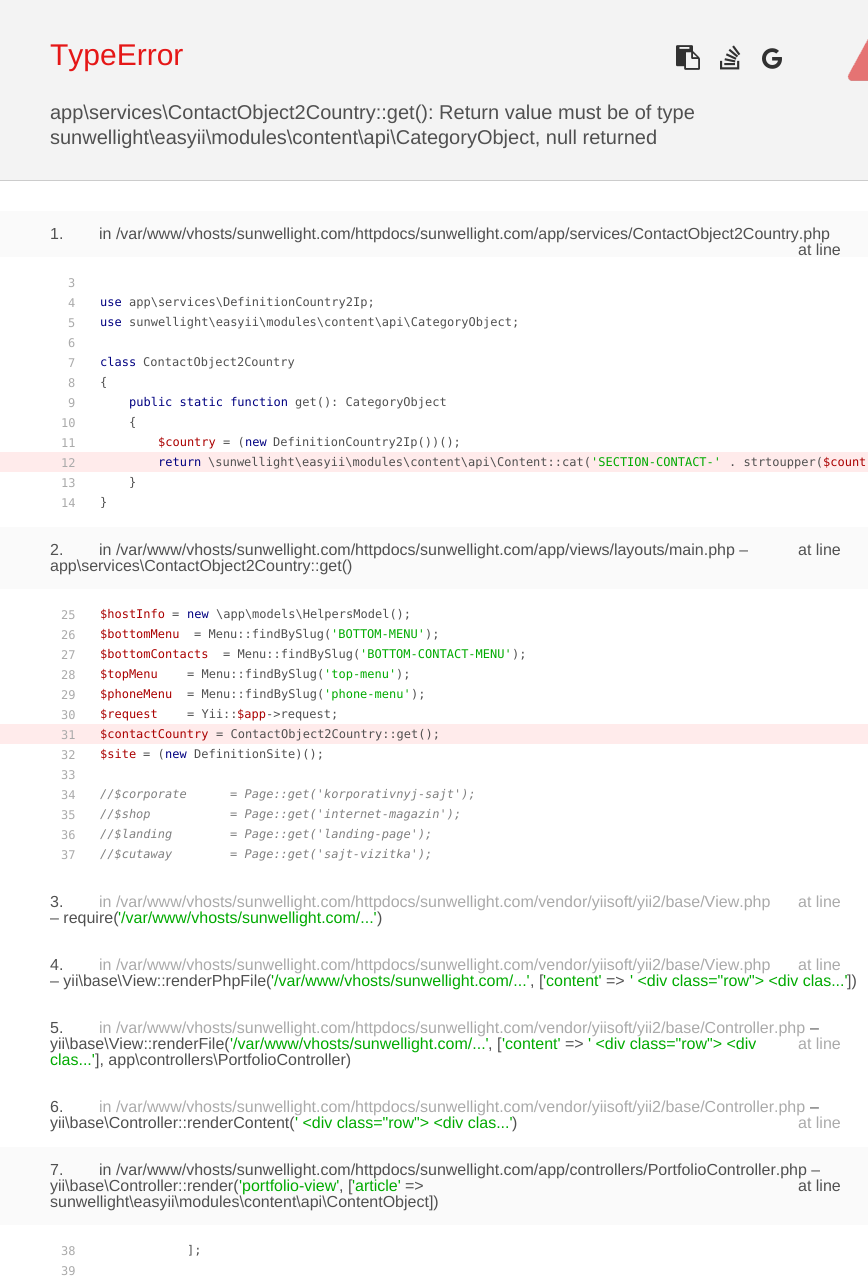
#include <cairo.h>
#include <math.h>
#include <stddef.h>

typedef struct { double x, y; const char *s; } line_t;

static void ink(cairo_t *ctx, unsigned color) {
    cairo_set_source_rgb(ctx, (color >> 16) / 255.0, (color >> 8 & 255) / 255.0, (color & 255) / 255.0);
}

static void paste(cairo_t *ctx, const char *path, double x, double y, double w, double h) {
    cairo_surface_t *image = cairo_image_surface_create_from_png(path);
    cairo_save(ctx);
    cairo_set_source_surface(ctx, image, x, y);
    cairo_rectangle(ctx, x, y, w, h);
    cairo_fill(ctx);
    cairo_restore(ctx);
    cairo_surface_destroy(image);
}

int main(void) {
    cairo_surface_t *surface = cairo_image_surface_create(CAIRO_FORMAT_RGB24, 868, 1287);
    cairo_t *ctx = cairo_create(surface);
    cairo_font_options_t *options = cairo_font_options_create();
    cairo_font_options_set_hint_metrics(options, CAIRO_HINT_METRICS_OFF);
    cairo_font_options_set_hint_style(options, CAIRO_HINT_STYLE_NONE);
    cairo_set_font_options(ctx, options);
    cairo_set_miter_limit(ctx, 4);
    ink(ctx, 0xFFFFFF);
    cairo_paint(ctx);
    ink(ctx, 0xF3F3F3);
    cairo_rectangle(ctx, 0, 0, 868, 180);
    cairo_fill(ctx);
    ink(ctx, 0xCCCCCC);
    cairo_rectangle(ctx, 0, 180, 868, 1);
    cairo_fill(ctx);
    cairo_select_font_face(ctx, "Liberation Sans", CAIRO_FONT_SLANT_NORMAL, CAIRO_FONT_WEIGHT_NORMAL);
    cairo_set_font_size(ctx, 30);
    ink(ctx, 0xE51717);
    cairo_move_to(ctx, 50, 65);
    cairo_show_text(ctx, "TypeError");
    paste(ctx, "media/1.png", 676, 45, 24, 25);
    paste(ctx, "media/2.png", 720, 45, 21, 25);
    paste(ctx, "media/3.png", 762, 48, 20, 21);
    paste(ctx, "media/4.png", 847, 39, 21, 42);
    cairo_set_font_size(ctx, 20);
    ink(ctx, 0x505050);
    cairo_move_to(ctx, 50, 119);
    cairo_show_text(ctx, "app\\services\\ContactObject2Country::get(): Return value must be of type");
    cairo_move_to(ctx, 50, 144);
    cairo_show_text(ctx, "sunwellight\\easyii\\modules\\content\\api\\CategoryObject, null returned");
    ink(ctx, 0xFAFAFA);
    cairo_rectangle(ctx, 0, 211, 868, 46);
    cairo_fill(ctx);
    cairo_set_font_size(ctx, 16);
    ink(ctx, 0x505050);
    {
        static const line_t items[] = {
            {50, 239, "1."},
            {99, 239, "in /var/www/vhosts/sunwellight.com/httpdocs/sunwellight.com/app/services/ContactObject2Country.php"},
            {798, 255, "at line"},
        };
        for (size_t i = 0; i < sizeof items / sizeof *items; i++) {
            cairo_move_to(ctx, items[i].x, items[i].y);
            cairo_show_text(ctx, items[i].s);
        }
    }
    cairo_select_font_face(ctx, "DejaVu Sans Mono", CAIRO_FONT_SLANT_NORMAL, CAIRO_FONT_WEIGHT_NORMAL);
    cairo_set_font_size(ctx, 12);
    ink(ctx, 0xAAAAAA);
    cairo_move_to(ctx, 68, 287);
    cairo_show_text(ctx, "3");
    cairo_move_to(ctx, 68, 307);
    cairo_show_text(ctx, "4");
    ink(ctx, 0x000080);
    cairo_move_to(ctx, 100, 306);
    cairo_show_text(ctx, "use");
    ink(ctx, 0x505050);
    cairo_move_to(ctx, 129, 306);
    cairo_show_text(ctx, "app\\services\\DefinitionCountry2Ip;");
    ink(ctx, 0xAAAAAA);
    cairo_move_to(ctx, 68, 327);
    cairo_show_text(ctx, "5");
    ink(ctx, 0x000080);
    cairo_move_to(ctx, 100, 326);
    cairo_show_text(ctx, "use");
    ink(ctx, 0x505050);
    cairo_move_to(ctx, 129, 326);
    cairo_show_text(ctx, "sunwellight\\easyii\\modules\\content\\api\\CategoryObject;");
    ink(ctx, 0xAAAAAA);
    cairo_move_to(ctx, 68, 347);
    cairo_show_text(ctx, "6");
    cairo_move_to(ctx, 68, 367);
    cairo_show_text(ctx, "7");
    ink(ctx, 0x000080);
    cairo_move_to(ctx, 100, 366);
    cairo_show_text(ctx, "class");
    ink(ctx, 0x505050);
    cairo_move_to(ctx, 143, 366);
    cairo_show_text(ctx, "ContactObject2Country");
    ink(ctx, 0xAAAAAA);
    cairo_move_to(ctx, 68, 387);
    cairo_show_text(ctx, "8");
    ink(ctx, 0x505050);
    cairo_move_to(ctx, 100, 386);
    cairo_show_text(ctx, "{");
    ink(ctx, 0xAAAAAA);
    cairo_move_to(ctx, 68, 407);
    cairo_show_text(ctx, "9");
    ink(ctx, 0x000080);
    cairo_move_to(ctx, 129, 406);
    cairo_show_text(ctx, "public static function");
    ink(ctx, 0x505050);
    cairo_move_to(ctx, 295, 406);
    cairo_show_text(ctx, "get(): CategoryObject");
    ink(ctx, 0xAAAAAA);
    cairo_move_to(ctx, 61, 427);
    cairo_show_text(ctx, "10");
    ink(ctx, 0x505050);
    cairo_move_to(ctx, 129, 426);
    cairo_show_text(ctx, "{");
    ink(ctx, 0xAAAAAA);
    cairo_move_to(ctx, 61, 447);
    cairo_show_text(ctx, "11");
    ink(ctx, 0xAA0000);
    cairo_move_to(ctx, 158, 446);
    cairo_show_text(ctx, "$country");
    ink(ctx, 0x505050);
    cairo_move_to(ctx, 223, 446);
    cairo_show_text(ctx, "= (");
    ink(ctx, 0x000080);
    cairo_move_to(ctx, 245, 446);
    cairo_show_text(ctx, "new");
    ink(ctx, 0x505050);
    cairo_move_to(ctx, 273, 446);
    cairo_show_text(ctx, "DefinitionCountry2Ip())();");
    ink(ctx, 0xFFEBEB);
    cairo_rectangle(ctx, 0, 452, 868, 20);
    cairo_fill(ctx);
    ink(ctx, 0xAAAAAA);
    cairo_move_to(ctx, 61, 467);
    cairo_show_text(ctx, "12");
    ink(ctx, 0x000080);
    cairo_move_to(ctx, 158, 466);
    cairo_show_text(ctx, "return");
    ink(ctx, 0x505050);
    cairo_move_to(ctx, 208, 466);
    cairo_show_text(ctx, "\\sunwellight\\easyii\\modules\\content\\api\\Content::cat(");
    ink(ctx, 0x00AA00);
    cairo_move_to(ctx, 591, 466);
    cairo_show_text(ctx, "'SECTION-CONTACT-'");
    ink(ctx, 0x505050);
    cairo_move_to(ctx, 729, 466);
    cairo_show_text(ctx, ". strtoupper(");
    ink(ctx, 0xAA0000);
    cairo_move_to(ctx, 823, 466);
    cairo_show_text(ctx, "$count");
    ink(ctx, 0xAAAAAA);
    cairo_move_to(ctx, 61, 487);
    cairo_show_text(ctx, "13");
    ink(ctx, 0x505050);
    cairo_move_to(ctx, 129, 486);
    cairo_show_text(ctx, "}");
    ink(ctx, 0xAAAAAA);
    cairo_move_to(ctx, 61, 507);
    cairo_show_text(ctx, "14");
    ink(ctx, 0x505050);
    cairo_move_to(ctx, 100, 506);
    cairo_show_text(ctx, "}");
    ink(ctx, 0xFAFAFA);
    cairo_rectangle(ctx, 0, 527, 868, 62);
    cairo_fill(ctx);
    cairo_select_font_face(ctx, "Liberation Sans", CAIRO_FONT_SLANT_NORMAL, CAIRO_FONT_WEIGHT_NORMAL);
    cairo_set_font_size(ctx, 16);
    ink(ctx, 0x505050);
    {
        static const line_t items[] = {
            {50, 555, "2."},
            {99, 555, "in /var/www/vhosts/sunwellight.com/httpdocs/sunwellight.com/app/views/layouts/main.php –"},
            {798, 555, "at line"},
            {50, 571, "app\\services\\ContactObject2Country::get()"},
        };
        for (size_t i = 0; i < sizeof items / sizeof *items; i++) {
            cairo_move_to(ctx, items[i].x, items[i].y);
            cairo_show_text(ctx, items[i].s);
        }
    }
    cairo_select_font_face(ctx, "DejaVu Sans Mono", CAIRO_FONT_SLANT_NORMAL, CAIRO_FONT_WEIGHT_NORMAL);
    cairo_set_font_size(ctx, 12);
    ink(ctx, 0xAAAAAA);
    cairo_move_to(ctx, 61, 619);
    cairo_show_text(ctx, "25");
    ink(ctx, 0xAA0000);
    cairo_move_to(ctx, 100, 618);
    cairo_show_text(ctx, "$hostInfo");
    ink(ctx, 0x505050);
    cairo_move_to(ctx, 172, 618);
    cairo_show_text(ctx, "=");
    ink(ctx, 0x000080);
    cairo_move_to(ctx, 187, 618);
    cairo_show_text(ctx, "new");
    ink(ctx, 0x505050);
    cairo_move_to(ctx, 216, 618);
    cairo_show_text(ctx, "\\app\\models\\HelpersModel();");
    ink(ctx, 0xAAAAAA);
    cairo_move_to(ctx, 61, 639);
    cairo_show_text(ctx, "26");
    ink(ctx, 0xAA0000);
    cairo_move_to(ctx, 100, 638);
    cairo_show_text(ctx, "$bottomMenu");
    ink(ctx, 0x505050);
    cairo_move_to(ctx, 194, 638);
    cairo_show_text(ctx, "= Menu::findBySlug(");
    ink(ctx, 0x00AA00);
    cairo_move_to(ctx, 331, 638);
    cairo_show_text(ctx, "'BOTTOM-MENU'");
    ink(ctx, 0x505050);
    cairo_move_to(ctx, 425, 638);
    cairo_show_text(ctx, ");");
    ink(ctx, 0xAAAAAA);
    cairo_move_to(ctx, 61, 659);
    cairo_show_text(ctx, "27");
    ink(ctx, 0xAA0000);
    cairo_move_to(ctx, 100, 658);
    cairo_show_text(ctx, "$bottomContacts");
    ink(ctx, 0x505050);
    cairo_move_to(ctx, 223, 658);
    cairo_show_text(ctx, "= Menu::findBySlug(");
    ink(ctx, 0x00AA00);
    cairo_move_to(ctx, 360, 658);
    cairo_show_text(ctx, "'BOTTOM-CONTACT-MENU'");
    ink(ctx, 0x505050);
    cairo_move_to(ctx, 512, 658);
    cairo_show_text(ctx, ");");
    ink(ctx, 0xAAAAAA);
    cairo_move_to(ctx, 61, 679);
    cairo_show_text(ctx, "28");
    ink(ctx, 0xAA0000);
    cairo_move_to(ctx, 100, 678);
    cairo_show_text(ctx, "$topMenu");
    ink(ctx, 0x505050);
    cairo_move_to(ctx, 187, 678);
    cairo_show_text(ctx, "= Menu::findBySlug(");
    ink(ctx, 0x00AA00);
    cairo_move_to(ctx, 324, 678);
    cairo_show_text(ctx, "'top-menu'");
    ink(ctx, 0x505050);
    cairo_move_to(ctx, 396, 678);
    cairo_show_text(ctx, ");");
    ink(ctx, 0xAAAAAA);
    cairo_move_to(ctx, 61, 699);
    cairo_show_text(ctx, "29");
    ink(ctx, 0xAA0000);
    cairo_move_to(ctx, 100, 698);
    cairo_show_text(ctx, "$phoneMenu");
    ink(ctx, 0x505050);
    cairo_move_to(ctx, 187, 698);
    cairo_show_text(ctx, "= Menu::findBySlug(");
    ink(ctx, 0x00AA00);
    cairo_move_to(ctx, 324, 698);
    cairo_show_text(ctx, "'phone-menu'");
    ink(ctx, 0x505050);
    cairo_move_to(ctx, 411, 698);
    cairo_show_text(ctx, ");");
    ink(ctx, 0xAAAAAA);
    cairo_move_to(ctx, 61, 719);
    cairo_show_text(ctx, "30");
    ink(ctx, 0xAA0000);
    cairo_move_to(ctx, 100, 718);
    cairo_show_text(ctx, "$request");
    ink(ctx, 0x505050);
    cairo_move_to(ctx, 187, 718);
    cairo_show_text(ctx, "= Yii::");
    ink(ctx, 0xAA0000);
    cairo_move_to(ctx, 237, 718);
    cairo_show_text(ctx, "$app");
    ink(ctx, 0x505050);
    cairo_move_to(ctx, 266, 718);
    cairo_show_text(ctx, "->request;");
    ink(ctx, 0xFFEBEB);
    cairo_rectangle(ctx, 0, 724, 868, 20);
    cairo_fill(ctx);
    ink(ctx, 0xAAAAAA);
    cairo_move_to(ctx, 61, 739);
    cairo_show_text(ctx, "31");
    ink(ctx, 0xAA0000);
    cairo_move_to(ctx, 100, 738);
    cairo_show_text(ctx, "$contactCountry");
    ink(ctx, 0x505050);
    cairo_move_to(ctx, 216, 738);
    cairo_show_text(ctx, "= ContactObject2Country::get();");
    ink(ctx, 0xAAAAAA);
    cairo_move_to(ctx, 61, 759);
    cairo_show_text(ctx, "32");
    ink(ctx, 0xAA0000);
    cairo_move_to(ctx, 100, 758);
    cairo_show_text(ctx, "$site");
    ink(ctx, 0x505050);
    cairo_move_to(ctx, 143, 758);
    cairo_show_text(ctx, "= (");
    ink(ctx, 0x000080);
    cairo_move_to(ctx, 165, 758);
    cairo_show_text(ctx, "new");
    ink(ctx, 0x505050);
    cairo_move_to(ctx, 194, 758);
    cairo_show_text(ctx, "DefinitionSite)();");
    ink(ctx, 0xAAAAAA);
    cairo_move_to(ctx, 61, 779);
    cairo_show_text(ctx, "33");
    cairo_move_to(ctx, 61, 799);
    cairo_show_text(ctx, "34");
    cairo_select_font_face(ctx, "DejaVu Sans Mono", CAIRO_FONT_SLANT_ITALIC, CAIRO_FONT_WEIGHT_NORMAL);
    ink(ctx, 0x808080);
    cairo_move_to(ctx, 100, 798);
    cairo_show_text(ctx, "//$corporate      = Page::get('korporativnyj-sajt');");
    cairo_select_font_face(ctx, "DejaVu Sans Mono", CAIRO_FONT_SLANT_NORMAL, CAIRO_FONT_WEIGHT_NORMAL);
    ink(ctx, 0xAAAAAA);
    cairo_move_to(ctx, 61, 819);
    cairo_show_text(ctx, "35");
    cairo_select_font_face(ctx, "DejaVu Sans Mono", CAIRO_FONT_SLANT_ITALIC, CAIRO_FONT_WEIGHT_NORMAL);
    ink(ctx, 0x808080);
    cairo_move_to(ctx, 100, 818);
    cairo_show_text(ctx, "//$shop           = Page::get('internet-magazin');");
    cairo_select_font_face(ctx, "DejaVu Sans Mono", CAIRO_FONT_SLANT_NORMAL, CAIRO_FONT_WEIGHT_NORMAL);
    ink(ctx, 0xAAAAAA);
    cairo_move_to(ctx, 61, 839);
    cairo_show_text(ctx, "36");
    cairo_select_font_face(ctx, "DejaVu Sans Mono", CAIRO_FONT_SLANT_ITALIC, CAIRO_FONT_WEIGHT_NORMAL);
    ink(ctx, 0x808080);
    cairo_move_to(ctx, 100, 838);
    cairo_show_text(ctx, "//$landing        = Page::get('landing-page');");
    cairo_select_font_face(ctx, "DejaVu Sans Mono", CAIRO_FONT_SLANT_NORMAL, CAIRO_FONT_WEIGHT_NORMAL);
    ink(ctx, 0xAAAAAA);
    cairo_move_to(ctx, 61, 859);
    cairo_show_text(ctx, "37");
    cairo_select_font_face(ctx, "DejaVu Sans Mono", CAIRO_FONT_SLANT_ITALIC, CAIRO_FONT_WEIGHT_NORMAL);
    ink(ctx, 0x808080);
    cairo_move_to(ctx, 100, 858);
    cairo_show_text(ctx, "//$cutaway        = Page::get('sajt-vizitka');");
    cairo_select_font_face(ctx, "Liberation Sans", CAIRO_FONT_SLANT_NORMAL, CAIRO_FONT_WEIGHT_NORMAL);
    cairo_set_font_size(ctx, 16);
    ink(ctx, 0x505050);
    cairo_move_to(ctx, 50, 907);
    cairo_show_text(ctx, "3.");
    ink(ctx, 0xAAAAAA);
    cairo_move_to(ctx, 99, 907);
    cairo_show_text(ctx, "in /var/www/vhosts/sunwellight.com/httpdocs/sunwellight.com/vendor/yiisoft/yii2/base/View.php");
    cairo_move_to(ctx, 798, 907);
    cairo_show_text(ctx, "at line");
    ink(ctx, 0x505050);
    cairo_move_to(ctx, 50, 923);
    cairo_show_text(ctx, "– require(");
    ink(ctx, 0x00AA00);
    cairo_move_to(ctx, 118, 923);
    cairo_show_text(ctx, "'/var/www/vhosts/sunwellight.com/...'");
    ink(ctx, 0x505050);
    cairo_move_to(ctx, 377, 923);
    cairo_show_text(ctx, ")");
    cairo_move_to(ctx, 50, 970);
    cairo_show_text(ctx, "4.");
    ink(ctx, 0xAAAAAA);
    cairo_move_to(ctx, 99, 970);
    cairo_show_text(ctx, "in /var/www/vhosts/sunwellight.com/httpdocs/sunwellight.com/vendor/yiisoft/yii2/base/View.php");
    cairo_move_to(ctx, 798, 970);
    cairo_show_text(ctx, "at line");
    ink(ctx, 0x505050);
    cairo_move_to(ctx, 50, 986);
    cairo_show_text(ctx, "– yii\\base\\View::renderPhpFile(");
    ink(ctx, 0x00AA00);
    cairo_move_to(ctx, 271, 986);
    cairo_show_text(ctx, "'/var/www/vhosts/sunwellight.com/...'");
    ink(ctx, 0x505050);
    cairo_move_to(ctx, 530, 986);
    cairo_show_text(ctx, ", [");
    ink(ctx, 0x00AA00);
    cairo_move_to(ctx, 543, 986);
    cairo_show_text(ctx, "'content'");
    ink(ctx, 0x505050);
    cairo_move_to(ctx, 606, 986);
    cairo_show_text(ctx, "=>");
    ink(ctx, 0x00AA00);
    cairo_move_to(ctx, 630, 986);
    cairo_show_text(ctx, "' <div class=\"row\"> <div clas...'");
    ink(ctx, 0x505050);
    cairo_move_to(ctx, 847, 986);
    cairo_show_text(ctx, "])");
    cairo_move_to(ctx, 50, 1033);
    cairo_show_text(ctx, "5.");
    ink(ctx, 0xAAAAAA);
    cairo_move_to(ctx, 99, 1033);
    cairo_show_text(ctx, "in /var/www/vhosts/sunwellight.com/httpdocs/sunwellight.com/vendor/yiisoft/yii2/base/Controller.php");
    ink(ctx, 0x505050);
    cairo_move_to(ctx, 810, 1033);
    cairo_show_text(ctx, "–");
    cairo_move_to(ctx, 50, 1049);
    cairo_show_text(ctx, "yii\\base\\View::renderFile(");
    ink(ctx, 0x00AA00);
    cairo_move_to(ctx, 230, 1049);
    cairo_show_text(ctx, "'/var/www/vhosts/sunwellight.com/...'");
    ink(ctx, 0x505050);
    cairo_move_to(ctx, 488, 1049);
    cairo_show_text(ctx, ", [");
    ink(ctx, 0x00AA00);
    cairo_move_to(ctx, 502, 1049);
    cairo_show_text(ctx, "'content'");
    ink(ctx, 0x505050);
    cairo_move_to(ctx, 565, 1049);
    cairo_show_text(ctx, "=>");
    ink(ctx, 0x00AA00);
    cairo_move_to(ctx, 588, 1049);
    cairo_show_text(ctx, "' <div class=\"row\"> <div");
    ink(ctx, 0xAAAAAA);
    cairo_move_to(ctx, 798, 1049);
    cairo_show_text(ctx, "at line");
    ink(ctx, 0x00AA00);
    cairo_move_to(ctx, 50, 1065);
    cairo_show_text(ctx, "clas...'");
    ink(ctx, 0x505050);
    cairo_move_to(ctx, 95, 1065);
    cairo_show_text(ctx, "], app\\controllers\\PortfolioController)");
    cairo_move_to(ctx, 50, 1112);
    cairo_show_text(ctx, "6.");
    ink(ctx, 0xAAAAAA);
    cairo_move_to(ctx, 99, 1112);
    cairo_show_text(ctx, "in /var/www/vhosts/sunwellight.com/httpdocs/sunwellight.com/vendor/yiisoft/yii2/base/Controller.php");
    ink(ctx, 0x505050);
    cairo_move_to(ctx, 810, 1112);
    cairo_show_text(ctx, "–");
    cairo_move_to(ctx, 50, 1128);
    cairo_show_text(ctx, "yii\\base\\Controller::renderContent(");
    ink(ctx, 0x00AA00);
    cairo_move_to(ctx, 295, 1128);
    cairo_show_text(ctx, "' <div class=\"row\"> <div clas...'");
    ink(ctx, 0x505050);
    cairo_move_to(ctx, 512, 1128);
    cairo_show_text(ctx, ")");
    ink(ctx, 0xAAAAAA);
    cairo_move_to(ctx, 798, 1128);
    cairo_show_text(ctx, "at line");
    ink(ctx, 0xFAFAFA);
    cairo_rectangle(ctx, 0, 1147, 868, 78);
    cairo_fill(ctx);
    ink(ctx, 0x505050);
    {
        static const line_t items[] = {
            {50, 1175, "7."},
            {99, 1175, "in /var/www/vhosts/sunwellight.com/httpdocs/sunwellight.com/app/controllers/PortfolioController.php –"},
            {50, 1191, "yii\\base\\Controller::render("},
        };
        for (size_t i = 0; i < sizeof items / sizeof *items; i++) {
            cairo_move_to(ctx, items[i].x, items[i].y);
            cairo_show_text(ctx, items[i].s);
        }
    }
    ink(ctx, 0x00AA00);
    cairo_move_to(ctx, 239, 1191);
    cairo_show_text(ctx, "'portfolio-view'");
    ink(ctx, 0x505050);
    cairo_move_to(ctx, 339, 1191);
    cairo_show_text(ctx, ", [");
    ink(ctx, 0x00AA00);
    cairo_move_to(ctx, 352, 1191);
    cairo_show_text(ctx, "'article'");
    ink(ctx, 0x505050);
    {
        static const line_t items[] = {
            {405, 1191, "=>"},
            {798, 1191, "at line"},
            {50, 1207, "sunwellight\\easyii\\modules\\content\\api\\ContentObject])"},
        };
        for (size_t i = 0; i < sizeof items / sizeof *items; i++) {
            cairo_move_to(ctx, items[i].x, items[i].y);
            cairo_show_text(ctx, items[i].s);
        }
    }
    cairo_select_font_face(ctx, "DejaVu Sans Mono", CAIRO_FONT_SLANT_NORMAL, CAIRO_FONT_WEIGHT_NORMAL);
    cairo_set_font_size(ctx, 12);
    ink(ctx, 0xAAAAAA);
    cairo_move_to(ctx, 61, 1255);
    cairo_show_text(ctx, "38");
    ink(ctx, 0x505050);
    cairo_move_to(ctx, 187, 1254);
    cairo_show_text(ctx, "];");
    ink(ctx, 0xAAAAAA);
    cairo_move_to(ctx, 61, 1275);
    cairo_show_text(ctx, "39");
    cairo_surface_write_to_png(surface, "image.png");
    cairo_font_options_destroy(options);
    cairo_destroy(ctx);
    cairo_surface_destroy(surface);
    return 0;
}
